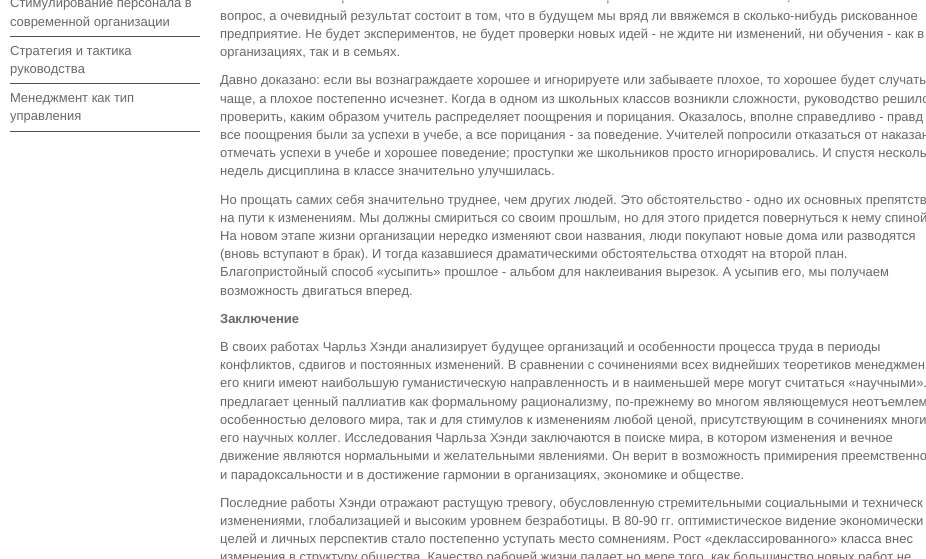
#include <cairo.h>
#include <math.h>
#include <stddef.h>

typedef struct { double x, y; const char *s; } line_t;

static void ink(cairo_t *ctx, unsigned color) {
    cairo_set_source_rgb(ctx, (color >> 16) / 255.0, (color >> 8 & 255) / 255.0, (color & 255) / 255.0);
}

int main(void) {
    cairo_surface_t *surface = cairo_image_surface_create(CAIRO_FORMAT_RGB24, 926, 559);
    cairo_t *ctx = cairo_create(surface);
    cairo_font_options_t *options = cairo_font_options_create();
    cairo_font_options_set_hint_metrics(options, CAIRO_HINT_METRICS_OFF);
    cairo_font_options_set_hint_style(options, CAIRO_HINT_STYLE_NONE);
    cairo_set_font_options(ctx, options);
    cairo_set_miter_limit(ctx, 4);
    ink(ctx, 0xFFFFFF);
    cairo_paint(ctx);
    ink(ctx, 0x4E4E4E);
    cairo_rectangle(ctx, 10, 36, 190, 1);
    cairo_fill(ctx);
    cairo_select_font_face(ctx, "Liberation Sans", CAIRO_FONT_SLANT_NORMAL, CAIRO_FONT_WEIGHT_NORMAL);
    cairo_set_font_size(ctx, 13);
    ink(ctx, 0x686868);
    cairo_move_to(ctx, 10, 7);
    cairo_show_text(ctx, "Стимулирование персонала в");
    cairo_move_to(ctx, 10, 26);
    cairo_show_text(ctx, "современной организации");
    ink(ctx, 0x4E4E4E);
    cairo_rectangle(ctx, 10, 83, 190, 1);
    cairo_fill(ctx);
    ink(ctx, 0x686868);
    cairo_move_to(ctx, 10, 55);
    cairo_show_text(ctx, "Стратегия и тактика");
    cairo_move_to(ctx, 10, 73);
    cairo_show_text(ctx, "руководства");
    ink(ctx, 0x4E4E4E);
    cairo_rectangle(ctx, 10, 131, 190, 1);
    cairo_fill(ctx);
    ink(ctx, 0x686868);
    {
        static const line_t items[] = {
            {10, 102, "Менеджмент как тип"},
            {10, 120, "управления"},
            {341, 2, ","},
            {606, 2, ","},
            {787, 2, "."},
            {220, 20, "вопрос, а очевидный результат состоит в том, что в будущем мы вряд ли ввяжемся в сколько-нибудь рискованное"},
            {220, 38, "предприятие. Не будет экспериментов, не будет проверки новых идей - не ждите ни изменений, ни обучения - как в"},
            {220, 56, "организациях, так и в семьях."},
            {220, 84, "Давно доказано: если вы вознаграждаете хорошее и игнорируете или забываете плохое, то хорошее будет случать"},
            {220, 103, "чаще, а плохое постепенно исчезнет. Когда в одном из школьных классов возникли сложности, руководство решило"},
            {220, 121, "проверить, каким образом учитель распределяет поощрения и порицания. Оказалось, вполне справедливо - правд"},
            {220, 139, "все поощрения были за успехи в учебе, а все порицания - за поведение. Учителей попросили отказаться от наказан"},
            {220, 157, "отмечать успехи в учебе и хорошее поведение; проступки же школьников просто игнорировались. И спустя несколь"},
            {220, 175, "недель дисциплина в классе значительно улучшилась."},
            {220, 204, "Но прощать самих себя значительно труднее, чем других людей. Это обстоятельство - одно их основных препятств"},
            {220, 222, "на пути к изменениям. Мы должны смириться со своим прошлым, но для этого придется повернуться к нему спиной"},
            {220, 240, "На новом этапе жизни организации нередко изменяют свои названия, люди покупают новые дома или разводятся"},
            {220, 258, "(вновь вступают в брак). И тогда казавшиеся драматическими обстоятельства отходят на второй план."},
            {220, 276, "Благопристойный способ «усыпить» прошлое - альбом для наклеивания вырезок. А усыпив его, мы получаем"},
            {220, 295, "возможность двигаться вперед."},
        };
        for (size_t i = 0; i < sizeof items / sizeof *items; i++) {
            cairo_move_to(ctx, items[i].x, items[i].y);
            cairo_show_text(ctx, items[i].s);
        }
    }
    cairo_select_font_face(ctx, "Liberation Sans", CAIRO_FONT_SLANT_NORMAL, CAIRO_FONT_WEIGHT_BOLD);
    cairo_move_to(ctx, 220, 323);
    cairo_show_text(ctx, "Заключение");
    cairo_select_font_face(ctx, "Liberation Sans", CAIRO_FONT_SLANT_NORMAL, CAIRO_FONT_WEIGHT_NORMAL);
    {
        static const line_t items[] = {
            {220, 351, "В своих работах Чарльз Хэнди анализирует будущее организаций и особенности процесса труда в периоды"},
            {220, 369, "конфликтов, сдвигов и постоянных изменений. В сравнении с сочинениями всех виднейших теоретиков менеджмен"},
            {220, 387, "его книги имеют наибольшую гуманистическую направленность и в наименьшей мере могут считаться «научными»."},
            {220, 406, "предлагает ценный паллиатив как формальному рационализму, по-прежнему во многом являющемуся неотъемлем"},
            {220, 424, "особенностью делового мира, так и для стимулов к изменениям любой ценой, присутствующим в сочинениях многи"},
            {220, 442, "его научных коллег. Исследования Чарльза Хэнди заключаются в поиске мира, в котором изменения и вечное"},
            {220, 460, "движение являются нормальными и желательными явлениями. Он верит в возможность примирения преемственно"},
            {220, 479, "и парадоксальности и в достижение гармонии в организациях, экономике и обществе."},
            {220, 507, "Последние работы Хэнди отражают растущую тревогу, обусловленную стремительными социальными и техническ"},
            {220, 525, "изменениями, глобализацией и высоким уровнем безработицы. В 80-90 гг. оптимистическое видение экономически"},
            {220, 543, "целей и личных перспектив стало постепенно уступать место сомнениям. Рост «деклассированного» класса внес"},
            {220, 561, "изменения в структуру общества. Качество рабочей жизни падает но мере того, как большинство новых работ не"},
        };
        for (size_t i = 0; i < sizeof items / sizeof *items; i++) {
            cairo_move_to(ctx, items[i].x, items[i].y);
            cairo_show_text(ctx, items[i].s);
        }
    }
    cairo_surface_write_to_png(surface, "image.png");
    cairo_font_options_destroy(options);
    cairo_destroy(ctx);
    cairo_surface_destroy(surface);
    return 0;
}
